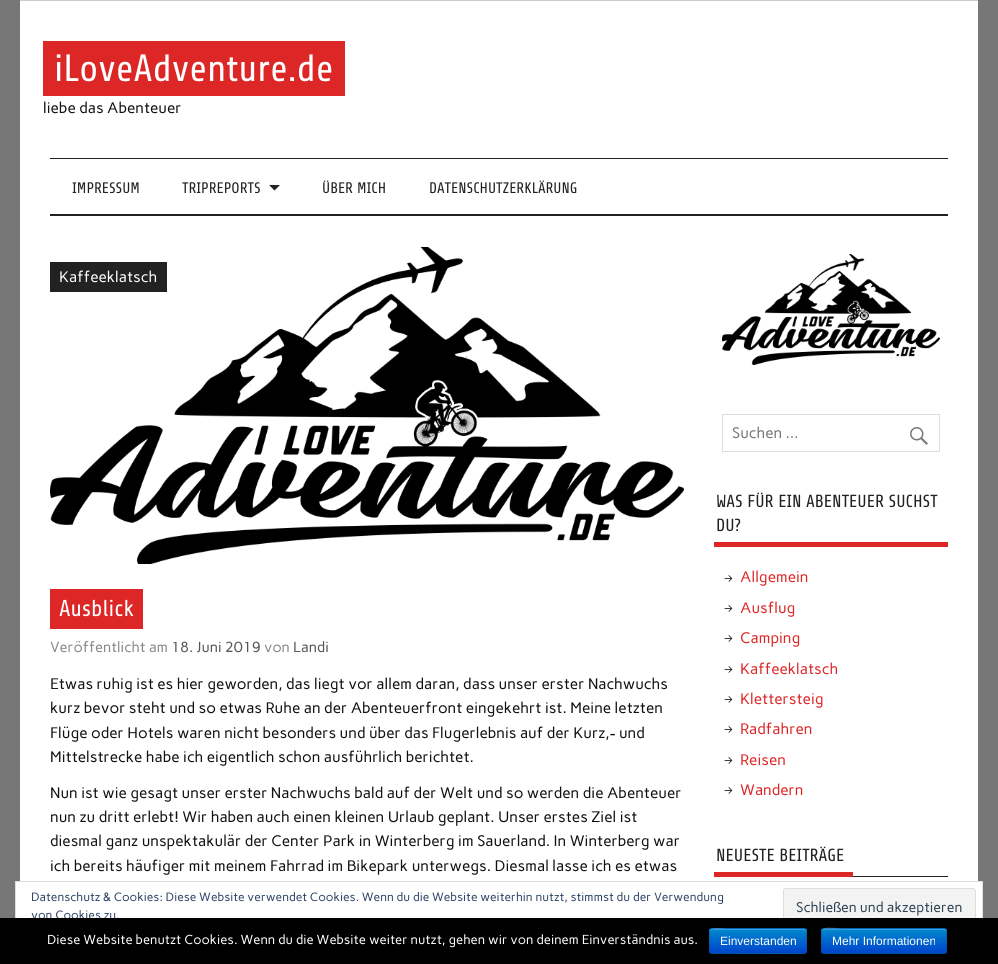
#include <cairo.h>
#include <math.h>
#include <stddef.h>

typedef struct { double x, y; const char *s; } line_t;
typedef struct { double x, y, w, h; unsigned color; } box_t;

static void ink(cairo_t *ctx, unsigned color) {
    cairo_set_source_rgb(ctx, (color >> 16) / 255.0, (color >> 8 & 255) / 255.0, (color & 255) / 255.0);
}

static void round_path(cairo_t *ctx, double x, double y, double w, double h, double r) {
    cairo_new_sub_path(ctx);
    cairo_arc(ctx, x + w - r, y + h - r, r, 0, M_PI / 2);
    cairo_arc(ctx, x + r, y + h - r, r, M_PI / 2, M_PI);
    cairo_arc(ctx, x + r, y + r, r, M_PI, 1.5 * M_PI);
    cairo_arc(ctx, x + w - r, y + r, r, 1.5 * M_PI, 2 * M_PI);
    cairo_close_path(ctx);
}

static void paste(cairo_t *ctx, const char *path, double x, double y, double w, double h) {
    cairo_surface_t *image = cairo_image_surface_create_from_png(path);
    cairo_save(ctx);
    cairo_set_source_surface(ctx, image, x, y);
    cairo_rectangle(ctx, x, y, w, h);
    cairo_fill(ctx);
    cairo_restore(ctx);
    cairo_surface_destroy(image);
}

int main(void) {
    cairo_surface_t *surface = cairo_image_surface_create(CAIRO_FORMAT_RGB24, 998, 964);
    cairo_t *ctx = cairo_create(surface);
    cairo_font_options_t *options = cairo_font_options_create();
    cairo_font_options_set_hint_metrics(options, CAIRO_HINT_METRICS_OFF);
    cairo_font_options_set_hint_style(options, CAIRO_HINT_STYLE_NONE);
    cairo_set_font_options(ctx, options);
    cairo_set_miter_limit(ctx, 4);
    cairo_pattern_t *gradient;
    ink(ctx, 0x777777);
    cairo_paint(ctx);
    {
        static const box_t items[] = {
            {20, 1, 958, 880, 0xFFFFFF},
            {20, 0, 958, 1, 0xCCCCCC},
            {43, 41, 302, 55, 0xDD2727},
        };
        for (size_t i = 0; i < sizeof items / sizeof *items; i++) {
            ink(ctx, items[i].color);
            cairo_rectangle(ctx, items[i].x, items[i].y, items[i].w, items[i].h);
            cairo_fill(ctx);
        }
    }
    cairo_select_font_face(ctx, "Share", CAIRO_FONT_SLANT_NORMAL, CAIRO_FONT_WEIGHT_NORMAL);
    cairo_set_font_size(ctx, 38);
    ink(ctx, 0xFFFFFF);
    cairo_move_to(ctx, 54, 81);
    cairo_show_text(ctx, "iLoveAdventure.de");
    cairo_select_font_face(ctx, "Carme", CAIRO_FONT_SLANT_NORMAL, CAIRO_FONT_WEIGHT_NORMAL);
    cairo_set_font_size(ctx, 15.2);
    ink(ctx, 0x111111);
    cairo_move_to(ctx, 43, 113);
    cairo_show_text(ctx, "liebe das Abenteuer");
    ink(ctx, 0x222222);
    cairo_rectangle(ctx, 50, 158, 898, 1);
    cairo_fill(ctx);
    cairo_rectangle(ctx, 50, 214, 898, 2);
    cairo_fill(ctx);
    cairo_select_font_face(ctx, "Share", CAIRO_FONT_SLANT_NORMAL, CAIRO_FONT_WEIGHT_NORMAL);
    cairo_move_to(ctx, 72, 193);
    cairo_show_text(ctx, "IMPRESSUM");
    cairo_move_to(ctx, 182, 193);
    cairo_show_text(ctx, "TRIPREPORTS");
    cairo_new_path(ctx);
    cairo_move_to(ctx, 269, 185);
    cairo_line_to(ctx, 280, 185);
    cairo_line_to(ctx, 274.5, 190.5);
    cairo_close_path(ctx);
    cairo_fill(ctx);
    cairo_move_to(ctx, 322, 193);
    cairo_show_text(ctx, "ÜBER MICH");
    cairo_move_to(ctx, 429, 193);
    cairo_show_text(ctx, "DATENSCHUTZERKLÄRUNG");
    paste(ctx, "media/1.png", 50, 247, 634, 317);
    cairo_rectangle(ctx, 50, 262, 117, 30);
    cairo_fill(ctx);
    cairo_select_font_face(ctx, "Carme", CAIRO_FONT_SLANT_NORMAL, CAIRO_FONT_WEIGHT_NORMAL);
    ink(ctx, 0xFFFFFF);
    cairo_move_to(ctx, 59, 282);
    cairo_show_text(ctx, "Kaffeeklatsch");
    ink(ctx, 0xDD2727);
    cairo_rectangle(ctx, 50, 589, 93, 40);
    cairo_fill(ctx);
    cairo_select_font_face(ctx, "Share", CAIRO_FONT_SLANT_NORMAL, CAIRO_FONT_WEIGHT_NORMAL);
    cairo_set_font_size(ctx, 23);
    ink(ctx, 0xFFFFFF);
    cairo_move_to(ctx, 59, 616);
    cairo_show_text(ctx, "Ausblick");
    cairo_select_font_face(ctx, "Carme", CAIRO_FONT_SLANT_NORMAL, CAIRO_FONT_WEIGHT_NORMAL);
    cairo_set_font_size(ctx, 14.5);
    ink(ctx, 0x888888);
    cairo_move_to(ctx, 50, 652);
    cairo_show_text(ctx, "Veröffentlicht am");
    ink(ctx, 0x555555);
    cairo_move_to(ctx, 171, 652);
    cairo_show_text(ctx, "18. Juni 2019");
    ink(ctx, 0x888888);
    cairo_move_to(ctx, 264, 652);
    cairo_show_text(ctx, "von");
    ink(ctx, 0x555555);
    cairo_move_to(ctx, 293, 652);
    cairo_show_text(ctx, "Landi");
    cairo_set_font_size(ctx, 15.2);
    ink(ctx, 0x111111);
    {
        static const line_t items[] = {
            {50, 689, "Etwas ruhig ist es hier geworden, das liegt vor allem daran, dass unser erster Nachwuchs"},
            {50, 713, "kurz bevor steht und so etwas Ruhe an der Abenteuerfront eingekehrt ist. Meine letzten"},
            {50, 738, "Flüge oder Hotels waren nicht besonders und über das Flugerlebnis auf der Kurz,- und"},
            {50, 762, "Mittelstrecke habe ich eigentlich schon ausführlich berichtet."},
            {50, 798, "Nun ist wie gesagt unser erster Nachwuchs bald auf der Welt und so werden die Abenteuer"},
            {50, 822, "nun zu dritt erlebt! Wir haben auch einen kleinen Urlaub geplant. Unser erstes Ziel ist"},
            {50, 846, "diesmal ganz unspektakulär der Center Park in Winterberg im Sauerland. In Winterberg war"},
            {50, 871, "ich bereits häufiger mit meinem Fahrrad im Bikepark unterwegs. Diesmal lasse ich es etwas"},
        };
        for (size_t i = 0; i < sizeof items / sizeof *items; i++) {
            cairo_move_to(ctx, items[i].x, items[i].y);
            cairo_show_text(ctx, items[i].s);
        }
    }
    paste(ctx, "media/2.png", 722, 254, 218, 111);
    cairo_rectangle(ctx, 722.5, 414.5, 217, 37);
    ink(ctx, 0xDDDDDD);
    cairo_set_line_width(ctx, 1);
    cairo_stroke(ctx);
    ink(ctx, 0x757575);
    cairo_move_to(ctx, 732, 438);
    cairo_show_text(ctx, "Suchen …");
    paste(ctx, "media/3.png", 910, 427, 18, 18);
    ink(ctx, 0xDD2727);
    cairo_rectangle(ctx, 714, 542, 234, 5);
    cairo_fill(ctx);
    cairo_select_font_face(ctx, "Share", CAIRO_FONT_SLANT_NORMAL, CAIRO_FONT_WEIGHT_NORMAL);
    cairo_set_font_size(ctx, 17.5);
    ink(ctx, 0x222222);
    cairo_move_to(ctx, 716, 507);
    cairo_show_text(ctx, "WAS FÜR EIN ABENTEUER SUCHST");
    cairo_move_to(ctx, 716, 531);
    cairo_show_text(ctx, "DU?");
    paste(ctx, "media/4.png", 724, 575, 9, 7);
    cairo_select_font_face(ctx, "Carme", CAIRO_FONT_SLANT_NORMAL, CAIRO_FONT_WEIGHT_NORMAL);
    cairo_set_font_size(ctx, 15.2);
    ink(ctx, 0xDD2727);
    cairo_move_to(ctx, 740, 582);
    cairo_show_text(ctx, "Allgemein");
    paste(ctx, "media/4.png", 724, 605, 9, 7);
    cairo_move_to(ctx, 740, 613);
    cairo_show_text(ctx, "Ausflug");
    paste(ctx, "media/4.png", 724, 635, 9, 7);
    cairo_move_to(ctx, 740, 643);
    cairo_show_text(ctx, "Camping");
    paste(ctx, "media/4.png", 724, 666, 9, 7);
    cairo_move_to(ctx, 740, 674);
    cairo_show_text(ctx, "Kaffeeklatsch");
    paste(ctx, "media/4.png", 724, 696, 9, 7);
    cairo_move_to(ctx, 740, 704);
    cairo_show_text(ctx, "Klettersteig");
    paste(ctx, "media/4.png", 724, 726, 9, 7);
    cairo_move_to(ctx, 740, 734);
    cairo_show_text(ctx, "Radfahren");
    paste(ctx, "media/4.png", 724, 757, 9, 7);
    cairo_move_to(ctx, 740, 765);
    cairo_show_text(ctx, "Reisen");
    paste(ctx, "media/4.png", 724, 787, 9, 7);
    cairo_move_to(ctx, 740, 795);
    cairo_show_text(ctx, "Wandern");
    ink(ctx, 0x222222);
    cairo_rectangle(ctx, 853, 876, 95, 1);
    cairo_fill(ctx);
    ink(ctx, 0xDD2727);
    cairo_rectangle(ctx, 714, 872, 139, 5);
    cairo_fill(ctx);
    cairo_select_font_face(ctx, "Share", CAIRO_FONT_SLANT_NORMAL, CAIRO_FONT_WEIGHT_NORMAL);
    cairo_set_font_size(ctx, 17.5);
    ink(ctx, 0x222222);
    cairo_move_to(ctx, 716, 861);
    cairo_show_text(ctx, "NEUESTE BEITRÄGE");
    ink(ctx, 0xFFFFFF);
    cairo_rectangle(ctx, 16, 882, 966, 36);
    cairo_fill(ctx);
    cairo_rectangle(ctx, 15.5, 881.5, 967, 67);
    ink(ctx, 0xDEDEDE);
    cairo_stroke(ctx);
    cairo_select_font_face(ctx, "Carme", CAIRO_FONT_SLANT_NORMAL, CAIRO_FONT_WEIGHT_NORMAL);
    cairo_set_font_size(ctx, 12);
    ink(ctx, 0x2E4467);
    cairo_move_to(ctx, 31, 901);
    cairo_show_text(ctx, "Datenschutz & Cookies: Diese Website verwendet Cookies. Wenn du die Website weiterhin nutzt, stimmst du der Verwendung");
    cairo_move_to(ctx, 31, 919);
    cairo_show_text(ctx, "von Cookies zu.");
    ink(ctx, 0xF3F3F3);
    round_path(ctx, 783.5, 888.5, 192, 38, 2.5);
    cairo_fill_preserve(ctx);
    ink(ctx, 0xDEDEDE);
    cairo_stroke(ctx);
    cairo_set_font_size(ctx, 14);
    ink(ctx, 0x2E4453);
    cairo_move_to(ctx, 796, 912);
    cairo_show_text(ctx, "Schlie");
    cairo_select_font_face(ctx, "Liberation Sans", CAIRO_FONT_SLANT_NORMAL, CAIRO_FONT_WEIGHT_NORMAL);
    cairo_move_to(ctx, 833, 912);
    cairo_show_text(ctx, "ß");
    cairo_select_font_face(ctx, "Carme", CAIRO_FONT_SLANT_NORMAL, CAIRO_FONT_WEIGHT_NORMAL);
    cairo_move_to(ctx, 841, 912);
    cairo_show_text(ctx, "en und akzeptieren");
    ink(ctx, 0x000000);
    cairo_rectangle(ctx, 0, 918, 998, 46);
    cairo_fill(ctx);
    cairo_set_font_size(ctx, 13);
    ink(ctx, 0xFFFFFF);
    cairo_move_to(ctx, 47, 944);
    cairo_show_text(ctx, "Diese Website benutzt Cookies. Wenn du die Website weiter nutzt, gehen wir von deinem Einverständnis aus.");
    ink(ctx, 0x006DCC);
    round_path(ctx, 709, 928, 98, 26, 3);
    cairo_fill(ctx);
    cairo_save(ctx);
    round_path(ctx, 709, 928, 98, 26, 3);
    cairo_clip(ctx);
    gradient = cairo_pattern_create_linear(758, 929, 758, 953);
    cairo_pattern_add_color_stop_rgba(gradient, 0, 0, 0.533, 0.8, 1);
    cairo_pattern_add_color_stop_rgba(gradient, 1, 0, 0.267, 0.8, 1);
    cairo_set_source(ctx, gradient);
    cairo_pattern_destroy(gradient);
    cairo_rectangle(ctx, 709, 929, 98, 24);
    cairo_fill(ctx);
    cairo_restore(ctx);
    cairo_set_source_rgba(ctx, 1, 1, 1, 0.2);
    cairo_new_path(ctx);
    cairo_move_to(ctx, 712, 930);
    cairo_line_to(ctx, 804, 930);
    cairo_curve_to(ctx, 805, 930, 806, 931, 806, 932);
    cairo_curve_to(ctx, 806, 931, 806, 929, 804, 929);
    cairo_line_to(ctx, 727, 929);
    cairo_curve_to(ctx, 726, 929, 710, 925, 710, 932);
    cairo_curve_to(ctx, 710, 931, 711, 930, 712, 930);
    cairo_close_path(ctx);
    cairo_fill(ctx);
    cairo_new_path(ctx);
    cairo_move_to(ctx, 806, 953);
    cairo_line_to(ctx, 805.5, 953);
    cairo_curve_to(ctx, 803.5, 954.5, 735.5, 953.5, 727.5, 953.5);
    cairo_line_to(ctx, 712, 953.5);
    cairo_line_to(ctx, 710, 953);
    cairo_set_source_rgba(ctx, 0, 0, 0, 0.25);
    cairo_stroke(ctx);
    cairo_new_path(ctx);
    cairo_move_to(ctx, 710, 953);
    cairo_curve_to(ctx, 708.5, 951, 709.5, 946.5, 709.5, 944.5);
    cairo_curve_to(ctx, 709.5, 924.5, 706, 928.5, 727.5, 928.5);
    cairo_line_to(ctx, 788.5, 928.5);
    cairo_curve_to(ctx, 810, 928.5, 806.5, 924.5, 806.5, 944.5);
    cairo_curve_to(ctx, 806.5, 946.5, 807.5, 951, 806, 953);
    cairo_set_source_rgba(ctx, 0, 0, 0, 0.1);
    cairo_stroke(ctx);
    cairo_select_font_face(ctx, "Liberation Sans", CAIRO_FONT_SLANT_NORMAL, CAIRO_FONT_WEIGHT_NORMAL);
    cairo_set_font_size(ctx, 12);
    ink(ctx, 0xFFFFFF);
    cairo_move_to(ctx, 720, 945);
    cairo_show_text(ctx, "Einverstanden");
    ink(ctx, 0x006DCC);
    round_path(ctx, 821, 928, 126, 26, 3);
    cairo_fill(ctx);
    cairo_save(ctx);
    round_path(ctx, 821, 928, 126, 26, 3);
    cairo_clip(ctx);
    gradient = cairo_pattern_create_linear(884, 929, 884, 953);
    cairo_pattern_add_color_stop_rgba(gradient, 0, 0, 0.533, 0.8, 1);
    cairo_pattern_add_color_stop_rgba(gradient, 1, 0, 0.267, 0.8, 1);
    cairo_set_source(ctx, gradient);
    cairo_pattern_destroy(gradient);
    cairo_rectangle(ctx, 821, 929, 126, 24);
    cairo_fill(ctx);
    cairo_restore(ctx);
    cairo_set_source_rgba(ctx, 1, 1, 1, 0.2);
    cairo_new_path(ctx);
    cairo_move_to(ctx, 824, 930);
    cairo_line_to(ctx, 944, 930);
    cairo_line_to(ctx, 946, 931);
    cairo_line_to(ctx, 946, 932);
    cairo_curve_to(ctx, 946, 931, 946, 930, 945, 929);
    cairo_line_to(ctx, 844, 929);
    cairo_curve_to(ctx, 838, 929, 822, 924, 822, 932);
    cairo_curve_to(ctx, 822, 931, 823, 930, 824, 930);
    cairo_close_path(ctx);
    cairo_fill(ctx);
    cairo_new_path(ctx);
    cairo_move_to(ctx, 946, 953);
    cairo_line_to(ctx, 944, 953.5);
    cairo_line_to(ctx, 844, 953.5);
    cairo_line_to(ctx, 824, 953.5);
    cairo_line_to(ctx, 822, 953);
    cairo_set_source_rgba(ctx, 0, 0, 0, 0.25);
    cairo_stroke(ctx);
    cairo_new_path(ctx);
    cairo_move_to(ctx, 822, 953);
    cairo_curve_to(ctx, 820.5, 951, 821.5, 943.5, 821.5, 941);
    cairo_line_to(ctx, 821.5, 934.5);
    cairo_curve_to(ctx, 821.5, 932.5, 821, 928.5, 824, 928.5);
    cairo_line_to(ctx, 944, 928.5);
    cairo_curve_to(ctx, 947, 928.5, 946.5, 932.5, 946.5, 934.5);
    cairo_line_to(ctx, 946.5, 941);
    cairo_curve_to(ctx, 946.5, 943.5, 947.5, 951, 946, 953);
    cairo_set_source_rgba(ctx, 0, 0, 0, 0.1);
    cairo_stroke(ctx);
    ink(ctx, 0xFFFFFF);
    cairo_move_to(ctx, 832, 945);
    cairo_show_text(ctx, "Mehr Informationen");
    cairo_surface_write_to_png(surface, "image.png");
    cairo_font_options_destroy(options);
    cairo_destroy(ctx);
    cairo_surface_destroy(surface);
    return 0;
}
